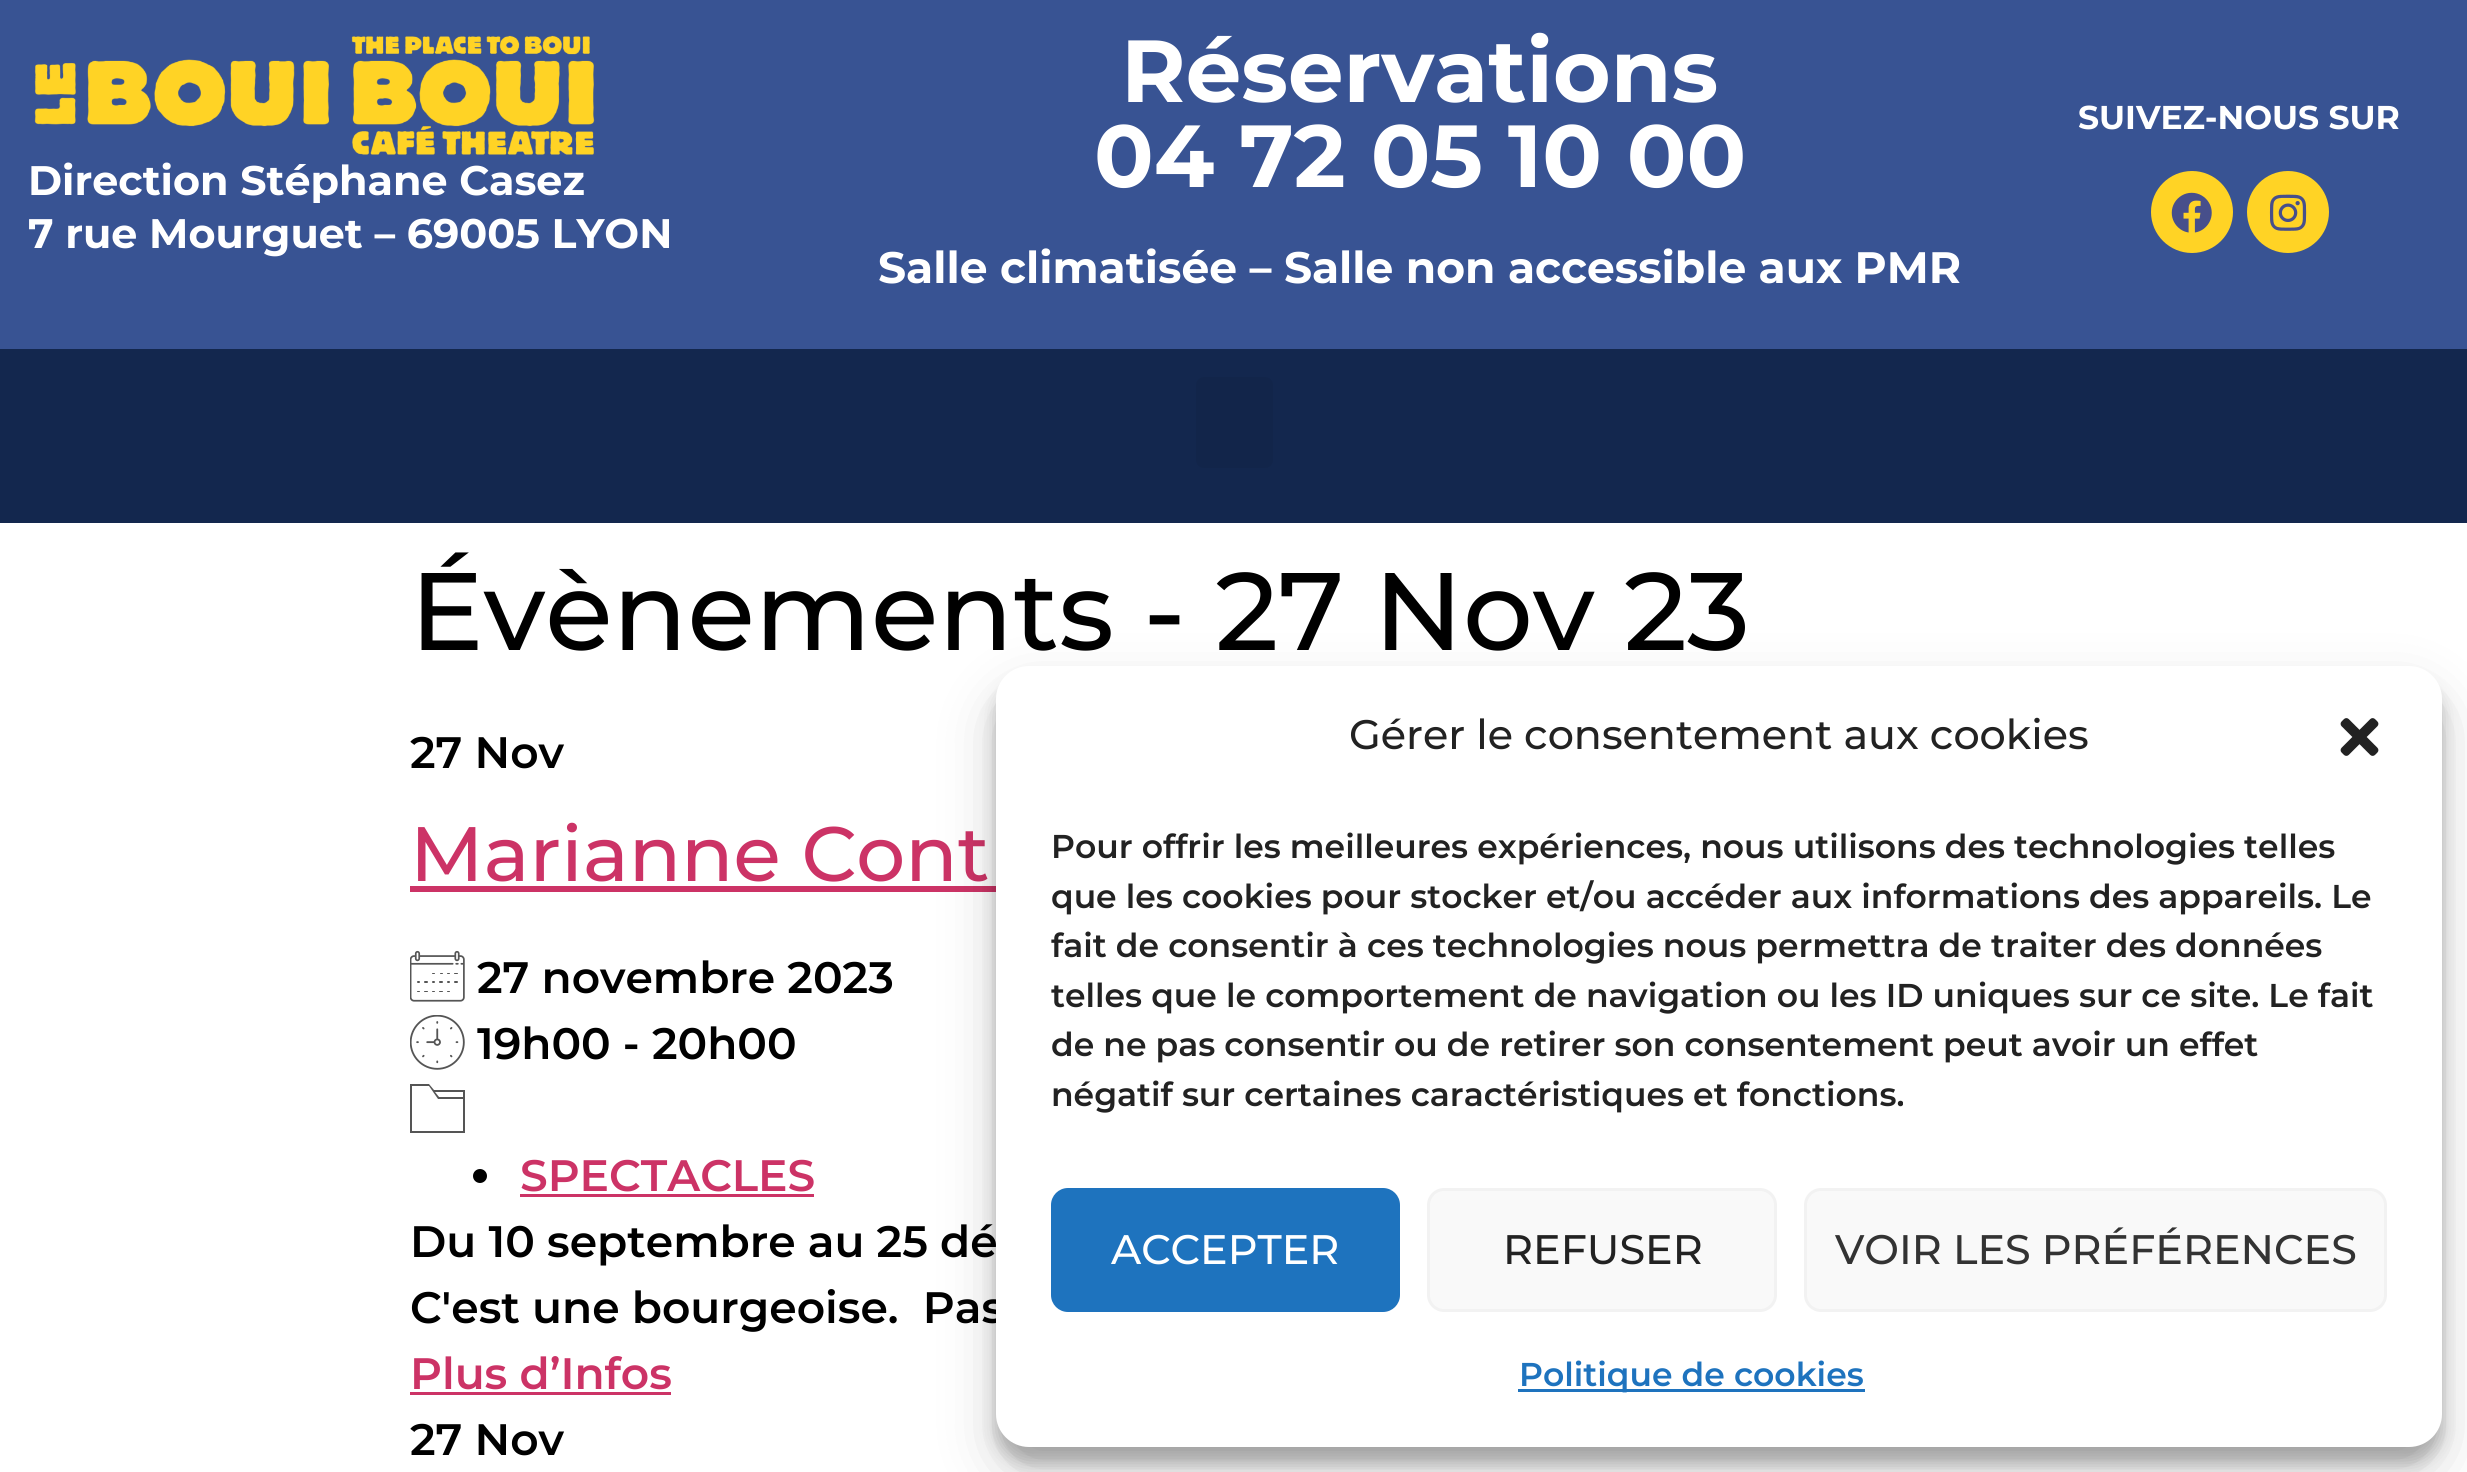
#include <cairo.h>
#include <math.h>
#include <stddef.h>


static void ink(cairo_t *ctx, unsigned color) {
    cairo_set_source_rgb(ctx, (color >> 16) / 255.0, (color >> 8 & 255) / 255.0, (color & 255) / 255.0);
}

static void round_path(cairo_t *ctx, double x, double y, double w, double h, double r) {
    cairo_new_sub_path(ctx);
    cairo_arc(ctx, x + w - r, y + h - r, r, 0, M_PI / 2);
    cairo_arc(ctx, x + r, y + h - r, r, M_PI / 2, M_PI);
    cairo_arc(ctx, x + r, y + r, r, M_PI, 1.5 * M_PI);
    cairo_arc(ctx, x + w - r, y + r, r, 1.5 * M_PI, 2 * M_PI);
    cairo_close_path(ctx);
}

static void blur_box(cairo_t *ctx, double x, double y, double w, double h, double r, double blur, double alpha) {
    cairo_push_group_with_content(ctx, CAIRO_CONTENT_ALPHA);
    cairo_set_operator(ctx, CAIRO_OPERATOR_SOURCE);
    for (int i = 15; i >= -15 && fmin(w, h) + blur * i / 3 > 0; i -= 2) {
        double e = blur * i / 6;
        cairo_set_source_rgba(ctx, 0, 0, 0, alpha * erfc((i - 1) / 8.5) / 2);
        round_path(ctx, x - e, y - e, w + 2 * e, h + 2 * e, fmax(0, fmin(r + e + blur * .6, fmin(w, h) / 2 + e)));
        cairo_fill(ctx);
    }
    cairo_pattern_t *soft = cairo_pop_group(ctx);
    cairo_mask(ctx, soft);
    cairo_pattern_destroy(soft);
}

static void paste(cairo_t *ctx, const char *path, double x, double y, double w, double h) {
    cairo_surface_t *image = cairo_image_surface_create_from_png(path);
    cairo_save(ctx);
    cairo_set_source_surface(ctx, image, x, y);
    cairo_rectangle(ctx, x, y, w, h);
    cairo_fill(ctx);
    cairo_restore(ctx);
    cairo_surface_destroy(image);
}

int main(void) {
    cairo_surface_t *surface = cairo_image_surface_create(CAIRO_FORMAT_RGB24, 2467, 1472);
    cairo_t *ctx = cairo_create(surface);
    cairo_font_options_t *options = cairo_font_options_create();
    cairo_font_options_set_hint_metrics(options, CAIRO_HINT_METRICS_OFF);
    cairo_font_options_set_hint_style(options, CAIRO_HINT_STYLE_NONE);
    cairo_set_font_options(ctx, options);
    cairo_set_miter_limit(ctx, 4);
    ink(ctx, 0xFFFFFF);
    cairo_paint(ctx);
    ink(ctx, 0x385393);
    cairo_rectangle(ctx, 0, 0, 2467, 349);
    cairo_fill(ctx);
    cairo_select_font_face(ctx, "Montserrat", CAIRO_FONT_SLANT_NORMAL, CAIRO_FONT_WEIGHT_BOLD);
    cairo_set_font_size(ctx, 88);
    ink(ctx, 0xFFFFFF);
    cairo_move_to(ctx, 1121, 102);
    cairo_show_text(ctx, "Réservations");
    cairo_move_to(ctx, 1094, 187);
    cairo_show_text(ctx, "04 72 05 10 00");
    cairo_set_font_size(ctx, 44);
    cairo_move_to(ctx, 878, 283);
    cairo_show_text(ctx, "Salle climatisée – Salle non accessible aux PMR");
    cairo_set_font_size(ctx, 33);
    cairo_move_to(ctx, 2078, 129);
    cairo_show_text(ctx, "SUIVEZ-NOUS SUR");
    ink(ctx, 0xFFD325);
    cairo_new_path(ctx);
    cairo_arc(ctx, 2192, 212, 41, 0, 2 * M_PI);
    cairo_fill(ctx);
    paste(ctx, "media/1.png", 2171, 192, 41, 41);
    cairo_arc(ctx, 2288, 212, 41, 0, 2 * M_PI);
    cairo_fill(ctx);
    paste(ctx, "media/2.png", 2269, 194, 38, 37);
    paste(ctx, "media/3.png", 34, 35, 561, 120);
    cairo_set_font_size(ctx, 41.25);
    ink(ctx, 0xFFFFFF);
    cairo_move_to(ctx, 28, 195);
    cairo_show_text(ctx, "Direction Stéphane Casez");
    cairo_move_to(ctx, 28, 248);
    cairo_show_text(ctx, "7 rue Mourguet – 69005 LYON");
    ink(ctx, 0x13274E);
    cairo_rectangle(ctx, 0, 349, 2467, 174);
    cairo_fill(ctx);
    ink(ctx, 0x12254A);
    round_path(ctx, 1196, 377, 77, 91, 8);
    cairo_fill(ctx);
    cairo_select_font_face(ctx, "Montserrat Medium", CAIRO_FONT_SLANT_NORMAL, CAIRO_FONT_WEIGHT_NORMAL);
    cairo_set_font_size(ctx, 110);
    ink(ctx, 0x000000);
    cairo_move_to(ctx, 410, 650);
    cairo_show_text(ctx, "Évènements - 27 Nov 23");
    cairo_select_font_face(ctx, "Montserrat SemiBold", CAIRO_FONT_SLANT_NORMAL, CAIRO_FONT_WEIGHT_NORMAL);
    cairo_set_font_size(ctx, 44);
    cairo_move_to(ctx, 410, 768);
    cairo_show_text(ctx, "27 Nov");
    cairo_select_font_face(ctx, "Montserrat Medium", CAIRO_FONT_SLANT_NORMAL, CAIRO_FONT_WEIGHT_NORMAL);
    cairo_set_font_size(ctx, 77);
    ink(ctx, 0xCC3366);
    cairo_move_to(ctx, 410, 881);
    cairo_show_text(ctx, "Marianne Cont");
    cairo_rectangle(ctx, 410, 886, 586, 6);
    cairo_fill(ctx);
    paste(ctx, "media/4.png", 410, 950, 55, 52);
    cairo_select_font_face(ctx, "Montserrat SemiBold", CAIRO_FONT_SLANT_NORMAL, CAIRO_FONT_WEIGHT_NORMAL);
    cairo_set_font_size(ctx, 44);
    ink(ctx, 0x000000);
    cairo_move_to(ctx, 477, 993);
    cairo_show_text(ctx, "27 novembre 2023");
    paste(ctx, "media/5.png", 410, 1015, 55, 55);
    cairo_move_to(ctx, 477, 1059);
    cairo_show_text(ctx, "19h00 - 20h00");
    ink(ctx, 0x555555);
    cairo_new_path(ctx);
    cairo_move_to(ctx, 434, 1090);
    cairo_line_to(ctx, 429, 1084);
    cairo_line_to(ctx, 410, 1084);
    cairo_line_to(ctx, 410, 1133);
    cairo_line_to(ctx, 465, 1133);
    cairo_line_to(ctx, 465, 1090);
    cairo_close_path(ctx);
    cairo_move_to(ctx, 463, 1092);
    cairo_line_to(ctx, 463, 1097);
    cairo_line_to(ctx, 439, 1097);
    cairo_line_to(ctx, 435, 1092);
    cairo_close_path(ctx);
    cairo_move_to(ctx, 412, 1131);
    cairo_line_to(ctx, 412, 1086);
    cairo_line_to(ctx, 429, 1086);
    cairo_line_to(ctx, 438, 1099);
    cairo_line_to(ctx, 463, 1099);
    cairo_line_to(ctx, 463, 1131);
    cairo_close_path(ctx);
    cairo_fill(ctx);
    ink(ctx, 0x000000);
    cairo_arc(ctx, 480, 1176, 7, 0, 2 * M_PI);
    cairo_fill(ctx);
    ink(ctx, 0xCC3366);
    cairo_move_to(ctx, 520, 1191);
    cairo_show_text(ctx, "SPECTACLES");
    cairo_rectangle(ctx, 520, 1194, 294, 3);
    cairo_fill(ctx);
    ink(ctx, 0x000000);
    cairo_move_to(ctx, 410, 1257);
    cairo_show_text(ctx, "Du 10 septembre au 25 dé");
    cairo_move_to(ctx, 410, 1323);
    cairo_show_text(ctx, "C'est une bourgeoise.  Pas");
    ink(ctx, 0xCC3366);
    cairo_move_to(ctx, 410, 1389);
    cairo_show_text(ctx, "Plus d’Infos");
    cairo_rectangle(ctx, 410, 1392, 261, 3);
    cairo_fill(ctx);
    ink(ctx, 0x000000);
    cairo_move_to(ctx, 410, 1455);
    cairo_show_text(ctx, "27 Nov");
    ink(ctx, 0x000000);
    blur_box(ctx, 996, 682, 1446, 781, 33, 8, 0.23);
    blur_box(ctx, 996, 693, 1446, 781, 33, 27.5, 0.19);
    ink(ctx, 0xFFFFFF);
    round_path(ctx, 996, 666, 1446, 781, 33);
    cairo_fill(ctx);
    cairo_select_font_face(ctx, "Montserrat Medium", CAIRO_FONT_SLANT_NORMAL, CAIRO_FONT_WEIGHT_NORMAL);
    cairo_set_font_size(ctx, 41.25);
    ink(ctx, 0x222222);
    cairo_move_to(ctx, 1349, 749);
    cairo_show_text(ctx, "Gérer le consentement aux cookies");
    paste(ctx, "media/6.png", 2340, 718, 39, 38);
    cairo_select_font_face(ctx, "Montserrat SemiBold", CAIRO_FONT_SLANT_NORMAL, CAIRO_FONT_WEIGHT_NORMAL);
    cairo_set_font_size(ctx, 33);
    cairo_move_to(ctx, 1051, 858);
    cairo_show_text(ctx, "Pour offrir les meilleures expériences, nous utilisons des technologies telles");
    cairo_move_to(ctx, 1051, 908);
    cairo_show_text(ctx, "que les cookies pour stocker et/ou accéder aux informations des appareils. Le");
    cairo_save(ctx);
    cairo_rectangle(ctx, 1051, 822, 1336, 311);
    cairo_clip(ctx);
    cairo_move_to(ctx, 1051, 957);
    cairo_show_text(ctx, "fait de consentir à ces technologies nous permettra de traiter des données");
    cairo_move_to(ctx, 1051, 1007);
    cairo_show_text(ctx, "telles que le comportement de navigation ou les ID uniques sur ce site. Le fait");
    cairo_restore(ctx);
    cairo_move_to(ctx, 1051, 1056);
    cairo_show_text(ctx, "de ne pas consentir ou de retirer son consentement peut avoir un effet");
    cairo_move_to(ctx, 1051, 1106);
    cairo_show_text(ctx, "négatif sur certaines caractéristiques et fonctions.");
    ink(ctx, 0x1E73BE);
    round_path(ctx, 1052.5, 1189.5, 346, 121, 15.5);
    cairo_fill_preserve(ctx);
    cairo_set_line_width(ctx, 3);
    cairo_stroke(ctx);
    cairo_select_font_face(ctx, "Montserrat Medium", CAIRO_FONT_SLANT_NORMAL, CAIRO_FONT_WEIGHT_NORMAL);
    cairo_set_font_size(ctx, 41.25);
    ink(ctx, 0xFFFFFF);
    cairo_move_to(ctx, 1111, 1264);
    cairo_show_text(ctx, "ACCEPTER");
    ink(ctx, 0xF9F9F9);
    round_path(ctx, 1428.5, 1189.5, 347, 121, 15.5);
    cairo_fill_preserve(ctx);
    ink(ctx, 0xF2F2F2);
    cairo_stroke(ctx);
    ink(ctx, 0x222222);
    cairo_move_to(ctx, 1503, 1264);
    cairo_show_text(ctx, "REFUSER");
    ink(ctx, 0xF9F9F9);
    round_path(ctx, 1805.5, 1189.5, 580, 121, 15.5);
    cairo_fill_preserve(ctx);
    ink(ctx, 0xF2F2F2);
    cairo_stroke(ctx);
    ink(ctx, 0x333333);
    cairo_move_to(ctx, 1835, 1264);
    cairo_show_text(ctx, "VOIR LES PRÉFÉRENCES");
    ink(ctx, 0x1E73BE);
    cairo_rectangle(ctx, 1518, 1389, 347, 3);
    cairo_fill(ctx);
    cairo_select_font_face(ctx, "Montserrat SemiBold", CAIRO_FONT_SLANT_NORMAL, CAIRO_FONT_WEIGHT_NORMAL);
    cairo_set_font_size(ctx, 33);
    cairo_move_to(ctx, 1519, 1386);
    cairo_show_text(ctx, "Politique de cookies");
    cairo_surface_write_to_png(surface, "image.png");
    cairo_font_options_destroy(options);
    cairo_destroy(ctx);
    cairo_surface_destroy(surface);
    return 0;
}
